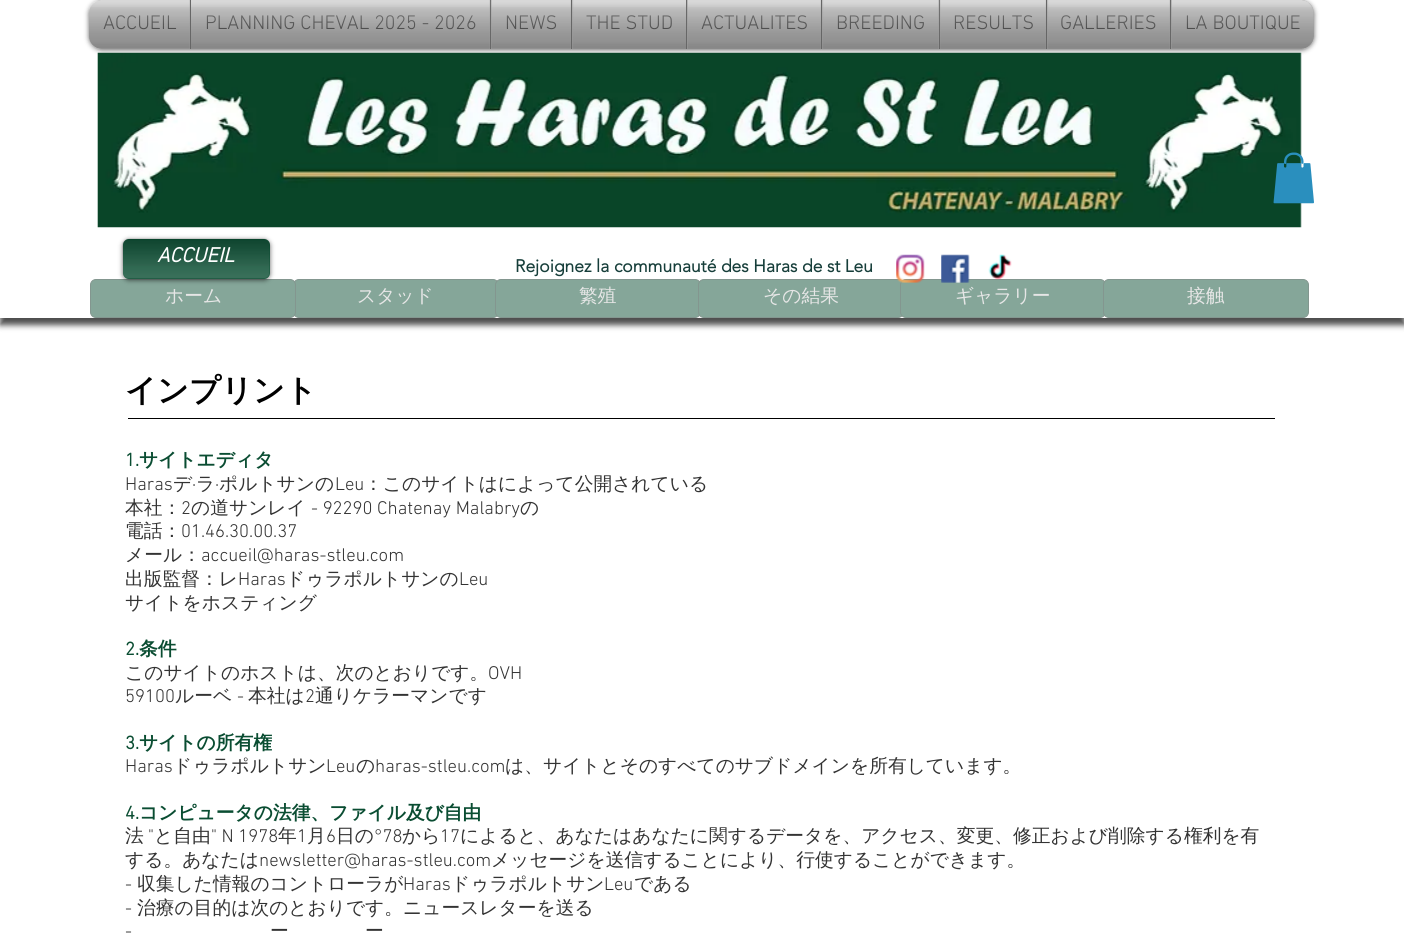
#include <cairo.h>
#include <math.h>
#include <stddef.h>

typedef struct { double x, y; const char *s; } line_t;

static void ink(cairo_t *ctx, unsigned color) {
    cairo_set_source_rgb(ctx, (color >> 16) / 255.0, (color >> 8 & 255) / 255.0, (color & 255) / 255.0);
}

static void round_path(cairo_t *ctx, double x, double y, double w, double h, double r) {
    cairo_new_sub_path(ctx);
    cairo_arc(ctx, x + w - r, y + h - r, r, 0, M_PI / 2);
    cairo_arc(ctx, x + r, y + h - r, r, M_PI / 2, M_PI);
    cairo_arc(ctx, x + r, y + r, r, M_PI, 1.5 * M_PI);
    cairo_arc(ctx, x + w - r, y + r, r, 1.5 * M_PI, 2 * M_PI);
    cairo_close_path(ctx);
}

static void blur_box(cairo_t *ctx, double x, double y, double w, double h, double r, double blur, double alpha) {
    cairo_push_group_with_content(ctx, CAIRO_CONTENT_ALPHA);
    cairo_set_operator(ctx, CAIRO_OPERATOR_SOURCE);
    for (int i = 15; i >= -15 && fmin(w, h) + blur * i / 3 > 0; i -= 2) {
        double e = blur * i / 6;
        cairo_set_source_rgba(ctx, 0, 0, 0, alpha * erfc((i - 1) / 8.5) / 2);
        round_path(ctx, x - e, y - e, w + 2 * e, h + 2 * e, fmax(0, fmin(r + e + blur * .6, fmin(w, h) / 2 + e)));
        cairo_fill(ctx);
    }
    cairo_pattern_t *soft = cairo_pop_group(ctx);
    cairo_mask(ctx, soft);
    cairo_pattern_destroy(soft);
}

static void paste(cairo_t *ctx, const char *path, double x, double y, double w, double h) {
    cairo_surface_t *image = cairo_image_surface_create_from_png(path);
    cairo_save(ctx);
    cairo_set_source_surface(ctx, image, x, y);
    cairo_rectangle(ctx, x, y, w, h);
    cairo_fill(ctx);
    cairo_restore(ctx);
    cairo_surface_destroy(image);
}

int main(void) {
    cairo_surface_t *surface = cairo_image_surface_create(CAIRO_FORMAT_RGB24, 1404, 933);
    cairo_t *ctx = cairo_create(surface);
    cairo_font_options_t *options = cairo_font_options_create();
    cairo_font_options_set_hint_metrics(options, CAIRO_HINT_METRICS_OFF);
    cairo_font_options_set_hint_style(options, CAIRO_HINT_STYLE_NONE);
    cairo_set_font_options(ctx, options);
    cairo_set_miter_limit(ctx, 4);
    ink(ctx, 0xFFFFFF);
    cairo_paint(ctx);
    ink(ctx, 0x0A4D32);
    round_path(ctx, 293.5, 279.5, 205, 38, 5.5);
    cairo_fill_preserve(ctx);
    ink(ctx, 0x062D1E);
    cairo_set_line_width(ctx, 1);
    cairo_stroke(ctx);
    ink(ctx, 0x0A4D32);
    round_path(ctx, 90.5, 279.5, 205, 38, 5.5);
    cairo_fill_preserve(ctx);
    ink(ctx, 0x062D1E);
    cairo_stroke(ctx);
    ink(ctx, 0x0A4D32);
    round_path(ctx, 495.5, 279.5, 205, 38, 5.5);
    cairo_fill_preserve(ctx);
    ink(ctx, 0x062D1E);
    cairo_stroke(ctx);
    ink(ctx, 0x0A4D32);
    round_path(ctx, 698.5, 279.5, 205, 38, 5.5);
    cairo_fill_preserve(ctx);
    ink(ctx, 0x062D1E);
    cairo_stroke(ctx);
    ink(ctx, 0x0A4D32);
    round_path(ctx, 900.5, 279.5, 205, 38, 5.5);
    cairo_fill_preserve(ctx);
    ink(ctx, 0x062D1E);
    cairo_stroke(ctx);
    ink(ctx, 0x0A4D32);
    round_path(ctx, 1103.5, 279.5, 205, 38, 5.5);
    cairo_fill_preserve(ctx);
    ink(ctx, 0x062D1E);
    cairo_stroke(ctx);
    cairo_save(ctx);
    cairo_set_fill_rule(ctx, CAIRO_FILL_RULE_EVEN_ODD);
    cairo_new_path(ctx);
    cairo_move_to(ctx, 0, 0);
    cairo_line_to(ctx, 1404, 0);
    cairo_line_to(ctx, 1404, 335);
    cairo_line_to(ctx, 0, 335);
    cairo_close_path(ctx);
    cairo_move_to(ctx, 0, 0);
    cairo_line_to(ctx, 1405, 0);
    cairo_line_to(ctx, 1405, 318);
    cairo_line_to(ctx, 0, 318);
    cairo_close_path(ctx);
    cairo_clip(ctx);
    ink(ctx, 0x000000);
    blur_box(ctx, 0, 8, 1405, 317, 0, 3, 0.7);
    cairo_restore(ctx);
    cairo_select_font_face(ctx, "WenQuanYi Zen Hei Medium", CAIRO_FONT_SLANT_NORMAL, CAIRO_FONT_WEIGHT_NORMAL);
    cairo_set_font_size(ctx, 18.75);
    ink(ctx, 0xCCCCCC);
    {
        static const line_t items[] = {
            {165, 302, "ホーム"},
            {357, 302, "スタッド"},
            {579, 302, "繁殖"},
            {763, 302, "その結果"},
            {955, 302, "ギャラリー"},
            {1187, 302, "接触"},
        };
        for (size_t i = 0; i < sizeof items / sizeof *items; i++) {
            cairo_move_to(ctx, items[i].x, items[i].y);
            cairo_show_text(ctx, items[i].s);
        }
    }
    cairo_set_source_rgba(ctx, 1, 1, 1, 0.5);
    cairo_rectangle(ctx, 0, 279, 1404, 39);
    cairo_fill(ctx);
    cairo_save(ctx);
    cairo_set_fill_rule(ctx, CAIRO_FILL_RULE_EVEN_ODD);
    cairo_new_path(ctx);
    cairo_move_to(ctx, 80, 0);
    cairo_line_to(ctx, 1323, 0);
    cairo_line_to(ctx, 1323, 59);
    cairo_line_to(ctx, 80, 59);
    cairo_close_path(ctx);
    cairo_move_to(ctx, 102, 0);
    cairo_line_to(ctx, 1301, 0);
    cairo_curve_to(ctx, 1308, 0, 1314, 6, 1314, 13);
    cairo_line_to(ctx, 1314, 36);
    cairo_curve_to(ctx, 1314, 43, 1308, 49, 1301, 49);
    cairo_line_to(ctx, 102, 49);
    cairo_curve_to(ctx, 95, 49, 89, 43, 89, 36);
    cairo_line_to(ctx, 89, 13);
    cairo_curve_to(ctx, 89, 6, 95, 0, 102, 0);
    cairo_close_path(ctx);
    cairo_clip(ctx);
    ink(ctx, 0x000000);
    blur_box(ctx, 89, 1, 1225, 49, 13, 2.5, 0.6);
    cairo_restore(ctx);
    cairo_set_source_rgba(ctx, 0.6, 0.6, 0.6, 0.87);
    round_path(ctx, 89, 0, 1225, 49, 13);
    cairo_fill(ctx);
    paste(ctx, "media/1.png", 89, 0, 1225, 48);
    paste(ctx, "media/2.png", 89, 7, 1225, 42);
    cairo_new_path(ctx);
    cairo_move_to(ctx, 102, 0);
    cairo_line_to(ctx, 190, 0);
    cairo_line_to(ctx, 190, 49);
    cairo_line_to(ctx, 102, 49);
    cairo_curve_to(ctx, 95, 49, 89, 43, 89, 36);
    cairo_line_to(ctx, 89, 13);
    cairo_curve_to(ctx, 89, 6, 95, 0, 102, 0);
    cairo_close_path(ctx);
    cairo_fill(ctx);
    cairo_select_font_face(ctx, "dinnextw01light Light", CAIRO_FONT_SLANT_NORMAL, CAIRO_FONT_WEIGHT_NORMAL);
    cairo_set_font_size(ctx, 20);
    ink(ctx, 0x333333);
    cairo_move_to(ctx, 103, 29);
    cairo_show_text(ctx, "ACCUEIL");
    paste(ctx, "media/3.png", 89, 0, 101, 48);
    paste(ctx, "media/4.png", 89, 7, 101, 42);
    cairo_set_source_rgba(ctx, 0.6, 0.6, 0.6, 0.87);
    cairo_rectangle(ctx, 191, 0, 299, 48);
    cairo_fill(ctx);
    ink(ctx, 0x666666);
    cairo_rectangle(ctx, 190, 0, 1, 49);
    cairo_fill(ctx);
    ink(ctx, 0x333333);
    cairo_move_to(ctx, 205, 29);
    cairo_show_text(ctx, "PLANNING CHEVAL 2025 - 2026");
    paste(ctx, "media/5.png", 191, 0, 299, 48);
    paste(ctx, "media/6.png", 191, 7, 299, 42);
    cairo_set_source_rgba(ctx, 0.6, 0.6, 0.6, 0.87);
    cairo_rectangle(ctx, 491, 0, 80, 48);
    cairo_fill(ctx);
    ink(ctx, 0x666666);
    cairo_rectangle(ctx, 490, 0, 1, 49);
    cairo_fill(ctx);
    ink(ctx, 0x333333);
    cairo_move_to(ctx, 505, 29);
    cairo_show_text(ctx, "NEWS");
    paste(ctx, "media/7.png", 490, 0, 81, 48);
    paste(ctx, "media/8.png", 491, 7, 80, 42);
    cairo_set_source_rgba(ctx, 0.6, 0.6, 0.6, 0.87);
    cairo_rectangle(ctx, 572, 0, 114, 48);
    cairo_fill(ctx);
    ink(ctx, 0x666666);
    cairo_rectangle(ctx, 571, 0, 1, 49);
    cairo_fill(ctx);
    ink(ctx, 0x333333);
    cairo_move_to(ctx, 586, 29);
    cairo_show_text(ctx, "THE STUD");
    paste(ctx, "media/9.png", 572, 0, 114, 48);
    paste(ctx, "media/10.png", 572, 7, 114, 42);
    cairo_set_source_rgba(ctx, 0.6, 0.6, 0.6, 0.87);
    cairo_rectangle(ctx, 687, 0, 134, 48);
    cairo_fill(ctx);
    ink(ctx, 0x666666);
    cairo_rectangle(ctx, 686, 0, 1, 49);
    cairo_fill(ctx);
    ink(ctx, 0x333333);
    cairo_move_to(ctx, 701, 29);
    cairo_show_text(ctx, "ACTUALITES");
    paste(ctx, "media/11.png", 686, 0, 135, 48);
    paste(ctx, "media/12.png", 687, 7, 134, 42);
    cairo_set_source_rgba(ctx, 0.6, 0.6, 0.6, 0.87);
    cairo_rectangle(ctx, 822, 0, 117, 48);
    cairo_fill(ctx);
    ink(ctx, 0x666666);
    cairo_rectangle(ctx, 821, 0, 1, 49);
    cairo_fill(ctx);
    ink(ctx, 0x333333);
    cairo_move_to(ctx, 836, 29);
    cairo_show_text(ctx, "BREEDING");
    paste(ctx, "media/13.png", 822, 0, 117, 48);
    paste(ctx, "media/14.png", 822, 7, 117, 42);
    cairo_set_source_rgba(ctx, 0.6, 0.6, 0.6, 0.87);
    cairo_rectangle(ctx, 940, 0, 106, 48);
    cairo_fill(ctx);
    ink(ctx, 0x666666);
    cairo_rectangle(ctx, 939, 0, 1, 49);
    cairo_fill(ctx);
    ink(ctx, 0x333333);
    cairo_move_to(ctx, 953, 29);
    cairo_show_text(ctx, "RESULTS");
    paste(ctx, "media/15.png", 939, 0, 107, 48);
    paste(ctx, "media/16.png", 940, 7, 106, 42);
    cairo_set_source_rgba(ctx, 0.6, 0.6, 0.6, 0.87);
    cairo_rectangle(ctx, 1047, 0, 123, 48);
    cairo_fill(ctx);
    ink(ctx, 0x666666);
    cairo_rectangle(ctx, 1046, 0, 1, 49);
    cairo_fill(ctx);
    ink(ctx, 0x333333);
    cairo_move_to(ctx, 1060, 29);
    cairo_show_text(ctx, "GALLERIES");
    paste(ctx, "media/17.png", 1047, 0, 123, 48);
    paste(ctx, "media/18.png", 1047, 7, 123, 42);
    cairo_set_source_rgba(ctx, 0.6, 0.6, 0.6, 0.87);
    cairo_new_path(ctx);
    cairo_move_to(ctx, 1170, 0);
    cairo_line_to(ctx, 1301, 0);
    cairo_curve_to(ctx, 1308, 0, 1314, 6, 1314, 13);
    cairo_line_to(ctx, 1314, 36);
    cairo_curve_to(ctx, 1314, 43, 1308, 49, 1301, 49);
    cairo_line_to(ctx, 1170, 49);
    cairo_close_path(ctx);
    cairo_fill(ctx);
    ink(ctx, 0x666666);
    cairo_rectangle(ctx, 1170, 0, 1, 49);
    cairo_fill(ctx);
    ink(ctx, 0x333333);
    cairo_move_to(ctx, 1185, 29);
    cairo_show_text(ctx, "LA BOUTIQUE");
    paste(ctx, "media/19.png", 1170, 0, 144, 48);
    paste(ctx, "media/20.png", 1171, 7, 143, 42);
    paste(ctx, "media/21.png", 97, 52, 1205, 176);
    paste(ctx, "media/22.png", 1273, 152, 41, 52);
    ink(ctx, 0x000000);
    blur_box(ctx, 123, 240, 147, 40, 6, 2.5, 0.6);
    ink(ctx, 0x0A4D32);
    round_path(ctx, 123, 239, 147, 40, 6);
    cairo_fill(ctx);
    paste(ctx, "media/23.png", 122, 238, 148, 28);
    paste(ctx, "media/24.png", 123, 240, 147, 39);
    cairo_select_font_face(ctx, "dinnextw01light", CAIRO_FONT_SLANT_ITALIC, CAIRO_FONT_WEIGHT_BOLD);
    cairo_set_font_size(ctx, 21);
    ink(ctx, 0xFFFFFF);
    cairo_move_to(ctx, 157, 262);
    cairo_show_text(ctx, "ACCUEIL");
    cairo_select_font_face(ctx, "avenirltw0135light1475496", CAIRO_FONT_SLANT_NORMAL, CAIRO_FONT_WEIGHT_BOLD);
    cairo_set_font_size(ctx, 17.5);
    ink(ctx, 0x163E3A);
    cairo_move_to(ctx, 515, 272);
    cairo_show_text(ctx, "Rejoignez la communauté des Haras de st Leu");
    paste(ctx, "media/25.png", 896, 254, 29, 29);
    paste(ctx, "media/26.png", 941, 254, 29, 29);
    paste(ctx, "media/27.png", 988, 254, 24, 26);
    cairo_select_font_face(ctx, "WenQuanYi Zen Hei", CAIRO_FONT_SLANT_NORMAL, CAIRO_FONT_WEIGHT_BOLD);
    cairo_set_font_size(ctx, 31.25);
    ink(ctx, 0x000000);
    cairo_move_to(ctx, 125, 401);
    cairo_show_text(ctx, "インプリント");
    cairo_rectangle(ctx, 128, 418, 1147, 1);
    cairo_fill(ctx);
    cairo_select_font_face(ctx, "dinnextw01light", CAIRO_FONT_SLANT_NORMAL, CAIRO_FONT_WEIGHT_BOLD);
    cairo_set_font_size(ctx, 18.75);
    ink(ctx, 0x0A4D32);
    cairo_move_to(ctx, 125, 466);
    cairo_show_text(ctx, "1.");
    cairo_select_font_face(ctx, "WenQuanYi Zen Hei", CAIRO_FONT_SLANT_NORMAL, CAIRO_FONT_WEIGHT_BOLD);
    cairo_move_to(ctx, 139, 466);
    cairo_show_text(ctx, "サイトエディタ");
    cairo_select_font_face(ctx, "dinnextw01light Light", CAIRO_FONT_SLANT_NORMAL, CAIRO_FONT_WEIGHT_NORMAL);
    ink(ctx, 0x333333);
    cairo_move_to(ctx, 125, 490);
    cairo_show_text(ctx, "Haras");
    cairo_select_font_face(ctx, "WenQuanYi Zen Hei Medium", CAIRO_FONT_SLANT_NORMAL, CAIRO_FONT_WEIGHT_NORMAL);
    cairo_move_to(ctx, 173, 490);
    cairo_show_text(ctx, "デ");
    cairo_select_font_face(ctx, "dinnextw01light Light", CAIRO_FONT_SLANT_NORMAL, CAIRO_FONT_WEIGHT_NORMAL);
    cairo_move_to(ctx, 192, 490);
    cairo_show_text(ctx, "·");
    cairo_select_font_face(ctx, "WenQuanYi Zen Hei Medium", CAIRO_FONT_SLANT_NORMAL, CAIRO_FONT_WEIGHT_NORMAL);
    cairo_move_to(ctx, 196, 490);
    cairo_show_text(ctx, "ラ");
    cairo_select_font_face(ctx, "dinnextw01light Light", CAIRO_FONT_SLANT_NORMAL, CAIRO_FONT_WEIGHT_NORMAL);
    cairo_move_to(ctx, 215, 490);
    cairo_show_text(ctx, "·");
    cairo_select_font_face(ctx, "WenQuanYi Zen Hei Medium", CAIRO_FONT_SLANT_NORMAL, CAIRO_FONT_WEIGHT_NORMAL);
    cairo_move_to(ctx, 219, 490);
    cairo_show_text(ctx, "ポルトサンの");
    cairo_select_font_face(ctx, "dinnextw01light Light", CAIRO_FONT_SLANT_NORMAL, CAIRO_FONT_WEIGHT_NORMAL);
    cairo_move_to(ctx, 335, 490);
    cairo_show_text(ctx, "Leu");
    cairo_select_font_face(ctx, "WenQuanYi Zen Hei Medium", CAIRO_FONT_SLANT_NORMAL, CAIRO_FONT_WEIGHT_NORMAL);
    cairo_move_to(ctx, 364, 490);
    cairo_show_text(ctx, "：このサイトはによって公開されている");
    cairo_move_to(ctx, 125, 514);
    cairo_show_text(ctx, "本社：");
    cairo_select_font_face(ctx, "dinnextw01light Light", CAIRO_FONT_SLANT_NORMAL, CAIRO_FONT_WEIGHT_NORMAL);
    cairo_move_to(ctx, 181, 514);
    cairo_show_text(ctx, "2");
    cairo_select_font_face(ctx, "WenQuanYi Zen Hei Medium", CAIRO_FONT_SLANT_NORMAL, CAIRO_FONT_WEIGHT_NORMAL);
    cairo_move_to(ctx, 191, 514);
    cairo_show_text(ctx, "の道サンレイ");
    cairo_select_font_face(ctx, "dinnextw01light Light", CAIRO_FONT_SLANT_NORMAL, CAIRO_FONT_WEIGHT_NORMAL);
    cairo_move_to(ctx, 311, 514);
    cairo_show_text(ctx, "- 92290 Chatenay Malabry");
    cairo_select_font_face(ctx, "WenQuanYi Zen Hei Medium", CAIRO_FONT_SLANT_NORMAL, CAIRO_FONT_WEIGHT_NORMAL);
    cairo_move_to(ctx, 520, 514);
    cairo_show_text(ctx, "の");
    cairo_move_to(ctx, 125, 537);
    cairo_show_text(ctx, "電話：");
    cairo_select_font_face(ctx, "dinnextw01light Light", CAIRO_FONT_SLANT_NORMAL, CAIRO_FONT_WEIGHT_NORMAL);
    cairo_move_to(ctx, 181, 537);
    cairo_show_text(ctx, "01.46.30.00.37");
    cairo_select_font_face(ctx, "WenQuanYi Zen Hei Medium", CAIRO_FONT_SLANT_NORMAL, CAIRO_FONT_WEIGHT_NORMAL);
    cairo_move_to(ctx, 125, 561);
    cairo_show_text(ctx, "メール：");
    cairo_select_font_face(ctx, "dinnextw01light Light", CAIRO_FONT_SLANT_NORMAL, CAIRO_FONT_WEIGHT_NORMAL);
    cairo_move_to(ctx, 201, 561);
    cairo_show_text(ctx, "accueil@haras-stleu.com");
    cairo_select_font_face(ctx, "WenQuanYi Zen Hei Medium", CAIRO_FONT_SLANT_NORMAL, CAIRO_FONT_WEIGHT_NORMAL);
    cairo_move_to(ctx, 125, 585);
    cairo_show_text(ctx, "出版監督：レ");
    cairo_select_font_face(ctx, "dinnextw01light Light", CAIRO_FONT_SLANT_NORMAL, CAIRO_FONT_WEIGHT_NORMAL);
    cairo_move_to(ctx, 238, 585);
    cairo_show_text(ctx, "Haras");
    cairo_select_font_face(ctx, "WenQuanYi Zen Hei Medium", CAIRO_FONT_SLANT_NORMAL, CAIRO_FONT_WEIGHT_NORMAL);
    cairo_move_to(ctx, 286, 585);
    cairo_show_text(ctx, "ドゥラポルトサンの");
    cairo_select_font_face(ctx, "dinnextw01light Light", CAIRO_FONT_SLANT_NORMAL, CAIRO_FONT_WEIGHT_NORMAL);
    cairo_move_to(ctx, 459, 585);
    cairo_show_text(ctx, "Leu");
    cairo_select_font_face(ctx, "WenQuanYi Zen Hei Medium", CAIRO_FONT_SLANT_NORMAL, CAIRO_FONT_WEIGHT_NORMAL);
    cairo_move_to(ctx, 125, 609);
    cairo_show_text(ctx, "サイトをホスティング");
    cairo_select_font_face(ctx, "dinnextw01light", CAIRO_FONT_SLANT_NORMAL, CAIRO_FONT_WEIGHT_BOLD);
    ink(ctx, 0x0A4D32);
    cairo_move_to(ctx, 125, 655);
    cairo_show_text(ctx, "2.");
    cairo_select_font_face(ctx, "WenQuanYi Zen Hei", CAIRO_FONT_SLANT_NORMAL, CAIRO_FONT_WEIGHT_BOLD);
    cairo_move_to(ctx, 139, 655);
    cairo_show_text(ctx, "条件");
    cairo_select_font_face(ctx, "WenQuanYi Zen Hei Medium", CAIRO_FONT_SLANT_NORMAL, CAIRO_FONT_WEIGHT_NORMAL);
    ink(ctx, 0x333333);
    cairo_move_to(ctx, 125, 679);
    cairo_show_text(ctx, "このサイトのホストは、次のとおりです。");
    cairo_select_font_face(ctx, "dinnextw01light Light", CAIRO_FONT_SLANT_NORMAL, CAIRO_FONT_WEIGHT_NORMAL);
    cairo_move_to(ctx, 488, 679);
    cairo_show_text(ctx, "OVH");
    cairo_move_to(ctx, 125, 702);
    cairo_show_text(ctx, "59100");
    cairo_select_font_face(ctx, "WenQuanYi Zen Hei Medium", CAIRO_FONT_SLANT_NORMAL, CAIRO_FONT_WEIGHT_NORMAL);
    cairo_move_to(ctx, 175, 702);
    cairo_show_text(ctx, "ルーベ");
    cairo_select_font_face(ctx, "dinnextw01light Light", CAIRO_FONT_SLANT_NORMAL, CAIRO_FONT_WEIGHT_NORMAL);
    cairo_move_to(ctx, 237, 702);
    cairo_show_text(ctx, "-");
    cairo_select_font_face(ctx, "WenQuanYi Zen Hei Medium", CAIRO_FONT_SLANT_NORMAL, CAIRO_FONT_WEIGHT_NORMAL);
    cairo_move_to(ctx, 248, 702);
    cairo_show_text(ctx, "本社は");
    cairo_select_font_face(ctx, "dinnextw01light Light", CAIRO_FONT_SLANT_NORMAL, CAIRO_FONT_WEIGHT_NORMAL);
    cairo_move_to(ctx, 305, 702);
    cairo_show_text(ctx, "2");
    cairo_select_font_face(ctx, "WenQuanYi Zen Hei Medium", CAIRO_FONT_SLANT_NORMAL, CAIRO_FONT_WEIGHT_NORMAL);
    cairo_move_to(ctx, 315, 702);
    cairo_show_text(ctx, "通りケラーマンです");
    cairo_select_font_face(ctx, "dinnextw01light", CAIRO_FONT_SLANT_NORMAL, CAIRO_FONT_WEIGHT_BOLD);
    ink(ctx, 0x0A4D32);
    cairo_move_to(ctx, 125, 749);
    cairo_show_text(ctx, "3.");
    cairo_select_font_face(ctx, "WenQuanYi Zen Hei", CAIRO_FONT_SLANT_NORMAL, CAIRO_FONT_WEIGHT_BOLD);
    cairo_move_to(ctx, 139, 749);
    cairo_show_text(ctx, "サイトの所有権");
    cairo_select_font_face(ctx, "dinnextw01light Light", CAIRO_FONT_SLANT_NORMAL, CAIRO_FONT_WEIGHT_NORMAL);
    ink(ctx, 0x333333);
    cairo_move_to(ctx, 125, 772);
    cairo_show_text(ctx, "Haras");
    cairo_select_font_face(ctx, "WenQuanYi Zen Hei Medium", CAIRO_FONT_SLANT_NORMAL, CAIRO_FONT_WEIGHT_NORMAL);
    cairo_move_to(ctx, 173, 772);
    cairo_show_text(ctx, "ドゥラポルトサン");
    cairo_select_font_face(ctx, "dinnextw01light Light", CAIRO_FONT_SLANT_NORMAL, CAIRO_FONT_WEIGHT_NORMAL);
    cairo_move_to(ctx, 326, 772);
    cairo_show_text(ctx, "Leu");
    cairo_select_font_face(ctx, "WenQuanYi Zen Hei Medium", CAIRO_FONT_SLANT_NORMAL, CAIRO_FONT_WEIGHT_NORMAL);
    cairo_move_to(ctx, 356, 772);
    cairo_show_text(ctx, "の");
    cairo_select_font_face(ctx, "dinnextw01light Light", CAIRO_FONT_SLANT_NORMAL, CAIRO_FONT_WEIGHT_NORMAL);
    cairo_move_to(ctx, 375, 772);
    cairo_show_text(ctx, "haras-stleu.com");
    cairo_select_font_face(ctx, "WenQuanYi Zen Hei Medium", CAIRO_FONT_SLANT_NORMAL, CAIRO_FONT_WEIGHT_NORMAL);
    cairo_move_to(ctx, 505, 772);
    cairo_show_text(ctx, "は、サイトとそのすべてのサブドメインを所有しています。");
    cairo_select_font_face(ctx, "dinnextw01light", CAIRO_FONT_SLANT_NORMAL, CAIRO_FONT_WEIGHT_BOLD);
    ink(ctx, 0x0A4D32);
    cairo_move_to(ctx, 125, 819);
    cairo_show_text(ctx, "4.");
    cairo_select_font_face(ctx, "WenQuanYi Zen Hei", CAIRO_FONT_SLANT_NORMAL, CAIRO_FONT_WEIGHT_BOLD);
    cairo_move_to(ctx, 139, 819);
    cairo_show_text(ctx, "コンピュータの法律、ファイル及び自由");
    cairo_select_font_face(ctx, "WenQuanYi Zen Hei Medium", CAIRO_FONT_SLANT_NORMAL, CAIRO_FONT_WEIGHT_NORMAL);
    ink(ctx, 0x333333);
    cairo_move_to(ctx, 125, 842);
    cairo_show_text(ctx, "法");
    cairo_select_font_face(ctx, "dinnextw01light Light", CAIRO_FONT_SLANT_NORMAL, CAIRO_FONT_WEIGHT_NORMAL);
    cairo_move_to(ctx, 148, 842);
    cairo_show_text(ctx, "\"");
    cairo_select_font_face(ctx, "WenQuanYi Zen Hei Medium", CAIRO_FONT_SLANT_NORMAL, CAIRO_FONT_WEIGHT_NORMAL);
    cairo_move_to(ctx, 154, 842);
    cairo_show_text(ctx, "と自由");
    cairo_select_font_face(ctx, "dinnextw01light Light", CAIRO_FONT_SLANT_NORMAL, CAIRO_FONT_WEIGHT_NORMAL);
    cairo_move_to(ctx, 211, 842);
    cairo_show_text(ctx, "\" N 1978");
    cairo_select_font_face(ctx, "WenQuanYi Zen Hei Medium", CAIRO_FONT_SLANT_NORMAL, CAIRO_FONT_WEIGHT_NORMAL);
    cairo_move_to(ctx, 278, 842);
    cairo_show_text(ctx, "年");
    cairo_select_font_face(ctx, "dinnextw01light Light", CAIRO_FONT_SLANT_NORMAL, CAIRO_FONT_WEIGHT_NORMAL);
    cairo_move_to(ctx, 297, 842);
    cairo_show_text(ctx, "1");
    cairo_select_font_face(ctx, "WenQuanYi Zen Hei Medium", CAIRO_FONT_SLANT_NORMAL, CAIRO_FONT_WEIGHT_NORMAL);
    cairo_move_to(ctx, 307, 842);
    cairo_show_text(ctx, "月");
    cairo_select_font_face(ctx, "dinnextw01light Light", CAIRO_FONT_SLANT_NORMAL, CAIRO_FONT_WEIGHT_NORMAL);
    cairo_move_to(ctx, 326, 842);
    cairo_show_text(ctx, "6");
    cairo_select_font_face(ctx, "WenQuanYi Zen Hei Medium", CAIRO_FONT_SLANT_NORMAL, CAIRO_FONT_WEIGHT_NORMAL);
    cairo_move_to(ctx, 336, 842);
    cairo_show_text(ctx, "日の");
    cairo_select_font_face(ctx, "dinnextw01light Light", CAIRO_FONT_SLANT_NORMAL, CAIRO_FONT_WEIGHT_NORMAL);
    cairo_move_to(ctx, 374, 842);
    cairo_show_text(ctx, "°78");
    cairo_select_font_face(ctx, "WenQuanYi Zen Hei Medium", CAIRO_FONT_SLANT_NORMAL, CAIRO_FONT_WEIGHT_NORMAL);
    cairo_move_to(ctx, 402, 842);
    cairo_show_text(ctx, "から");
    cairo_select_font_face(ctx, "dinnextw01light Light", CAIRO_FONT_SLANT_NORMAL, CAIRO_FONT_WEIGHT_NORMAL);
    cairo_move_to(ctx, 440, 842);
    cairo_show_text(ctx, "17");
    cairo_select_font_face(ctx, "WenQuanYi Zen Hei Medium", CAIRO_FONT_SLANT_NORMAL, CAIRO_FONT_WEIGHT_NORMAL);
    cairo_move_to(ctx, 460, 842);
    cairo_show_text(ctx, "によると、あなたはあなたに関するデータを、アクセス、変更、修正および削除する権利を有");
    cairo_move_to(ctx, 125, 866);
    cairo_show_text(ctx, "する。あなたは");
    cairo_select_font_face(ctx, "dinnextw01light Light", CAIRO_FONT_SLANT_NORMAL, CAIRO_FONT_WEIGHT_NORMAL);
    cairo_move_to(ctx, 259, 866);
    cairo_show_text(ctx, "newsletter@haras-stleu.com");
    cairo_select_font_face(ctx, "WenQuanYi Zen Hei Medium", CAIRO_FONT_SLANT_NORMAL, CAIRO_FONT_WEIGHT_NORMAL);
    cairo_move_to(ctx, 491, 866);
    cairo_show_text(ctx, "メッセージを送信することにより、行使することができます。");
    cairo_select_font_face(ctx, "dinnextw01light Light", CAIRO_FONT_SLANT_NORMAL, CAIRO_FONT_WEIGHT_NORMAL);
    cairo_move_to(ctx, 125, 890);
    cairo_show_text(ctx, "-");
    cairo_select_font_face(ctx, "WenQuanYi Zen Hei Medium", CAIRO_FONT_SLANT_NORMAL, CAIRO_FONT_WEIGHT_NORMAL);
    cairo_move_to(ctx, 137, 890);
    cairo_show_text(ctx, "収集した情報のコントローラが");
    cairo_select_font_face(ctx, "dinnextw01light Light", CAIRO_FONT_SLANT_NORMAL, CAIRO_FONT_WEIGHT_NORMAL);
    cairo_move_to(ctx, 403, 890);
    cairo_show_text(ctx, "Haras");
    cairo_select_font_face(ctx, "WenQuanYi Zen Hei Medium", CAIRO_FONT_SLANT_NORMAL, CAIRO_FONT_WEIGHT_NORMAL);
    cairo_move_to(ctx, 451, 890);
    cairo_show_text(ctx, "ドゥラポルトサン");
    cairo_select_font_face(ctx, "dinnextw01light Light", CAIRO_FONT_SLANT_NORMAL, CAIRO_FONT_WEIGHT_NORMAL);
    cairo_move_to(ctx, 604, 890);
    cairo_show_text(ctx, "Leu");
    cairo_select_font_face(ctx, "WenQuanYi Zen Hei Medium", CAIRO_FONT_SLANT_NORMAL, CAIRO_FONT_WEIGHT_NORMAL);
    cairo_move_to(ctx, 634, 890);
    cairo_show_text(ctx, "である");
    cairo_select_font_face(ctx, "dinnextw01light Light", CAIRO_FONT_SLANT_NORMAL, CAIRO_FONT_WEIGHT_NORMAL);
    cairo_move_to(ctx, 125, 914);
    cairo_show_text(ctx, "-");
    cairo_select_font_face(ctx, "WenQuanYi Zen Hei Medium", CAIRO_FONT_SLANT_NORMAL, CAIRO_FONT_WEIGHT_NORMAL);
    {
        static const line_t items[] = {
            {137, 914, "治療の目的は次のとおりです。ニュースレターを送る"},
            {270, 937, "ー"},
            {365, 937, "ー"},
        };
        for (size_t i = 0; i < sizeof items / sizeof *items; i++) {
            cairo_move_to(ctx, items[i].x, items[i].y);
            cairo_show_text(ctx, items[i].s);
        }
    }
    cairo_select_font_face(ctx, "dinnextw01light Light", CAIRO_FONT_SLANT_NORMAL, CAIRO_FONT_WEIGHT_NORMAL);
    cairo_move_to(ctx, 125, 937);
    cairo_show_text(ctx, "-");
    cairo_surface_write_to_png(surface, "image.png");
    cairo_font_options_destroy(options);
    cairo_destroy(ctx);
    cairo_surface_destroy(surface);
    return 0;
}
